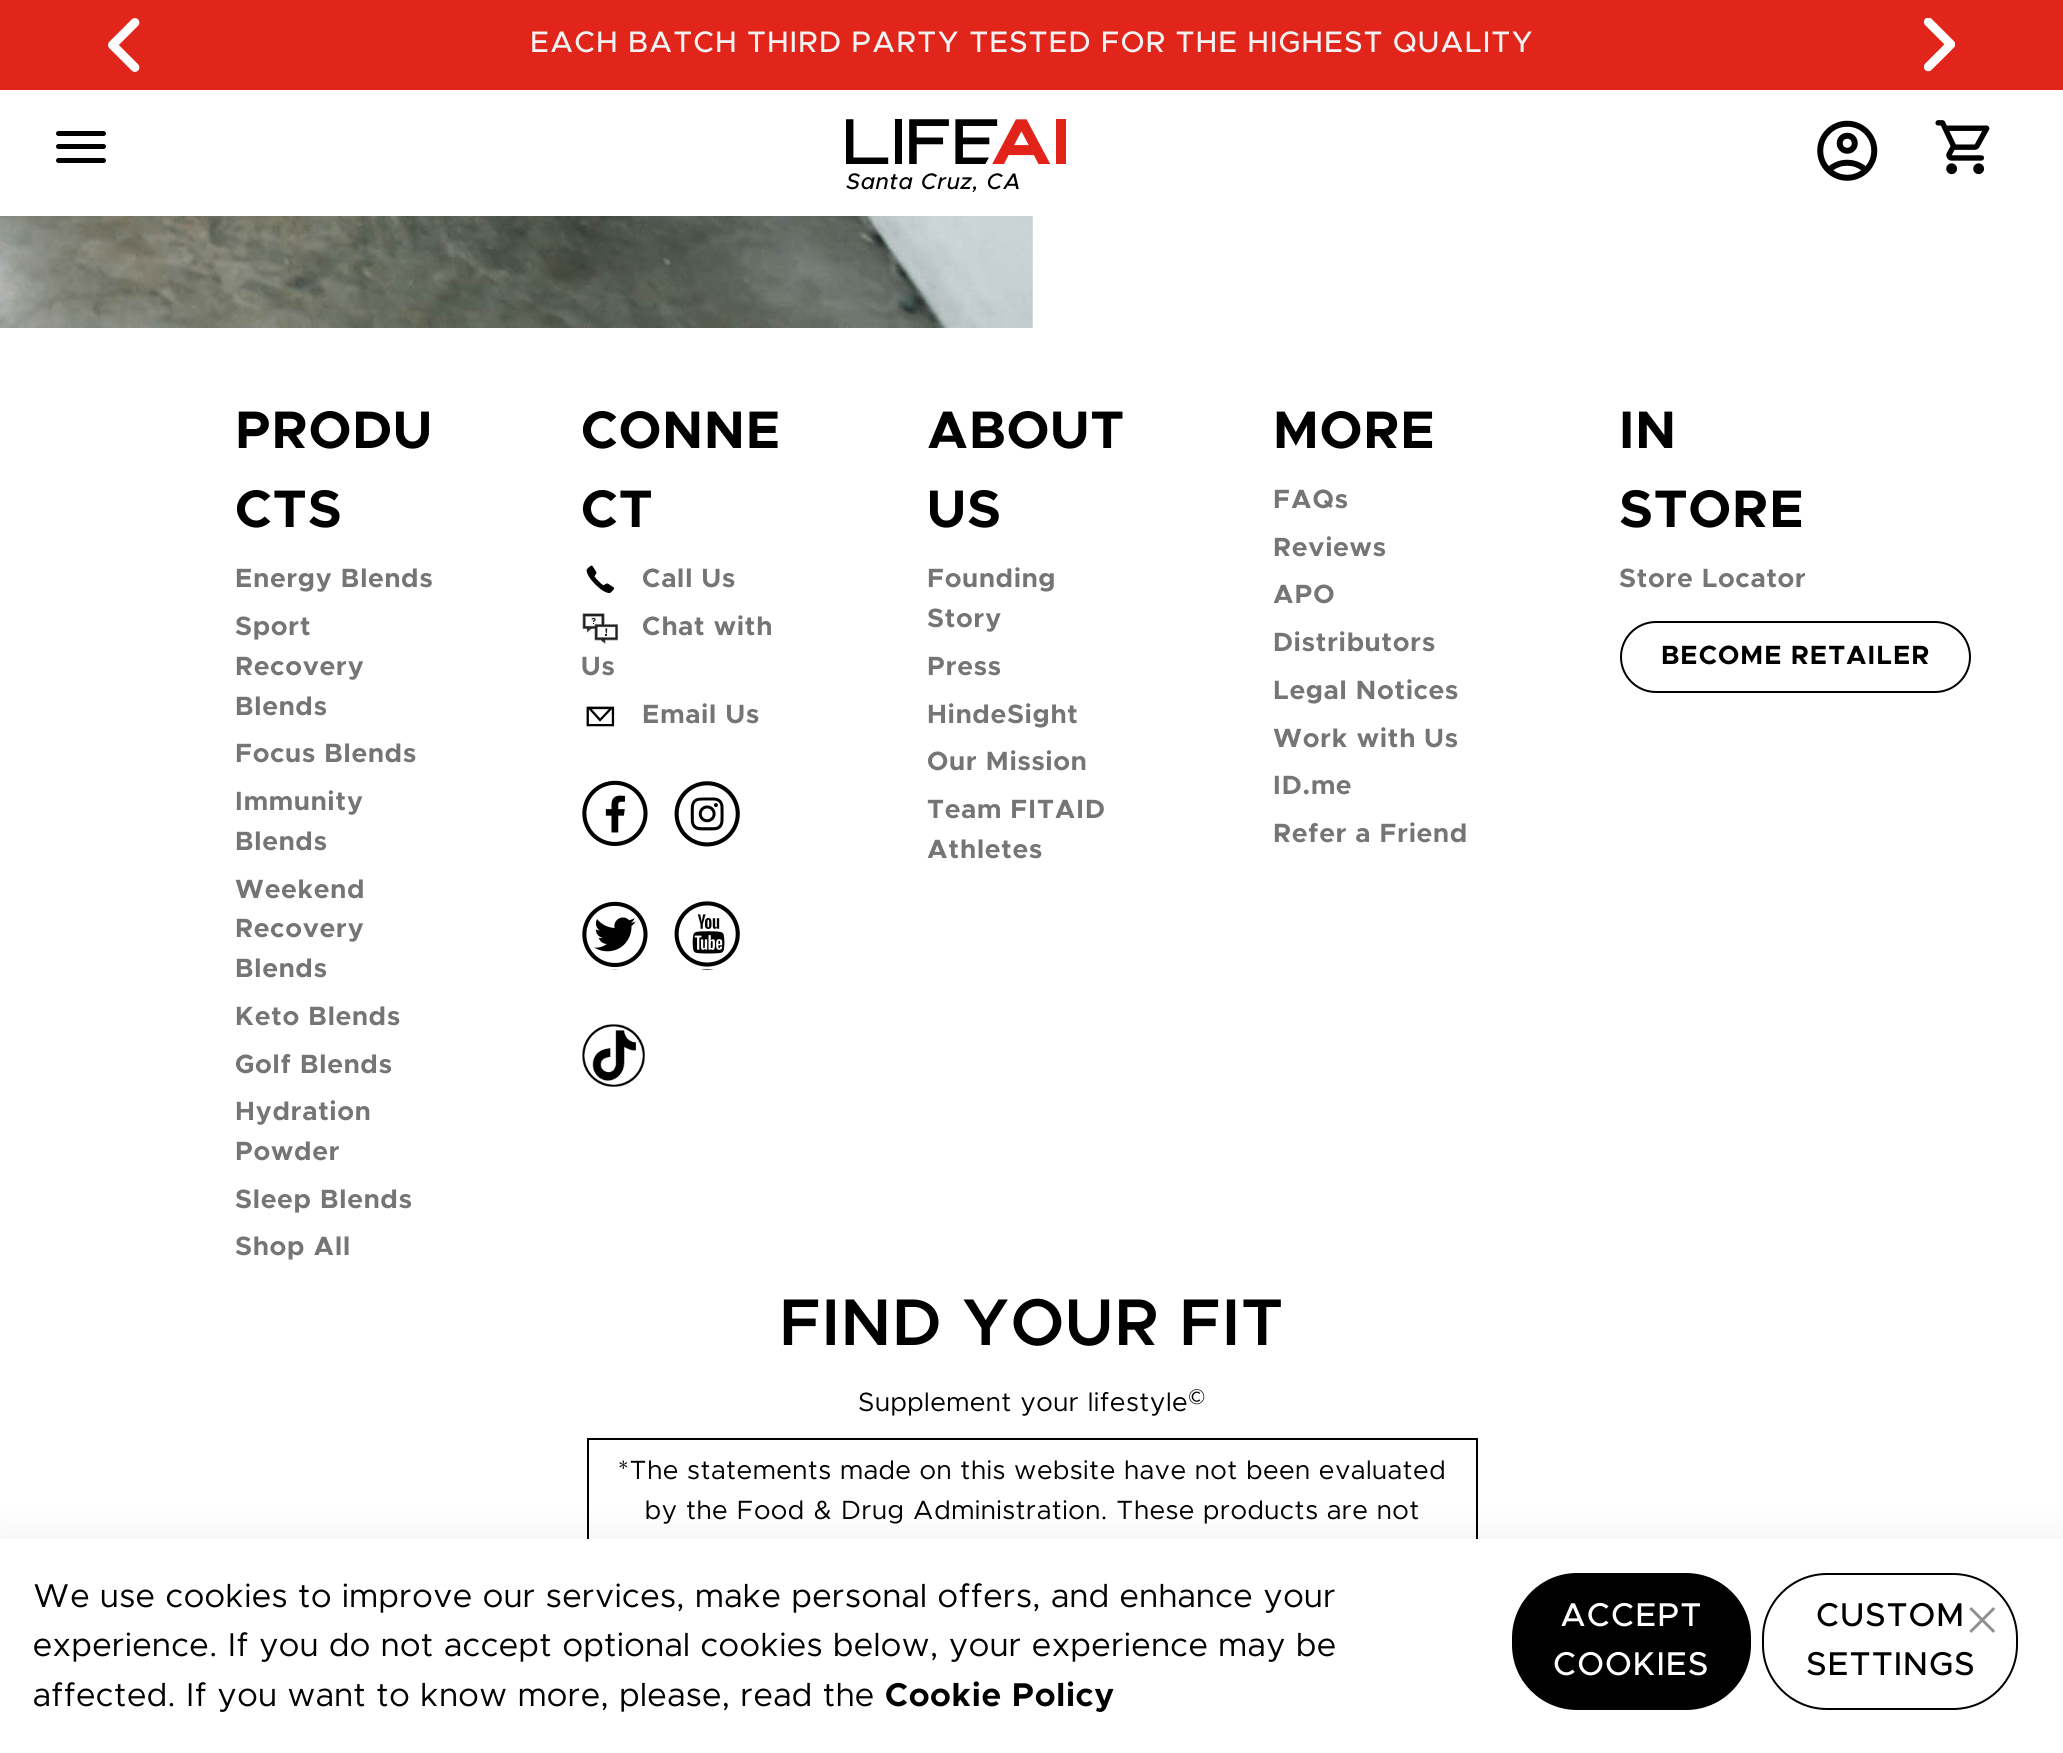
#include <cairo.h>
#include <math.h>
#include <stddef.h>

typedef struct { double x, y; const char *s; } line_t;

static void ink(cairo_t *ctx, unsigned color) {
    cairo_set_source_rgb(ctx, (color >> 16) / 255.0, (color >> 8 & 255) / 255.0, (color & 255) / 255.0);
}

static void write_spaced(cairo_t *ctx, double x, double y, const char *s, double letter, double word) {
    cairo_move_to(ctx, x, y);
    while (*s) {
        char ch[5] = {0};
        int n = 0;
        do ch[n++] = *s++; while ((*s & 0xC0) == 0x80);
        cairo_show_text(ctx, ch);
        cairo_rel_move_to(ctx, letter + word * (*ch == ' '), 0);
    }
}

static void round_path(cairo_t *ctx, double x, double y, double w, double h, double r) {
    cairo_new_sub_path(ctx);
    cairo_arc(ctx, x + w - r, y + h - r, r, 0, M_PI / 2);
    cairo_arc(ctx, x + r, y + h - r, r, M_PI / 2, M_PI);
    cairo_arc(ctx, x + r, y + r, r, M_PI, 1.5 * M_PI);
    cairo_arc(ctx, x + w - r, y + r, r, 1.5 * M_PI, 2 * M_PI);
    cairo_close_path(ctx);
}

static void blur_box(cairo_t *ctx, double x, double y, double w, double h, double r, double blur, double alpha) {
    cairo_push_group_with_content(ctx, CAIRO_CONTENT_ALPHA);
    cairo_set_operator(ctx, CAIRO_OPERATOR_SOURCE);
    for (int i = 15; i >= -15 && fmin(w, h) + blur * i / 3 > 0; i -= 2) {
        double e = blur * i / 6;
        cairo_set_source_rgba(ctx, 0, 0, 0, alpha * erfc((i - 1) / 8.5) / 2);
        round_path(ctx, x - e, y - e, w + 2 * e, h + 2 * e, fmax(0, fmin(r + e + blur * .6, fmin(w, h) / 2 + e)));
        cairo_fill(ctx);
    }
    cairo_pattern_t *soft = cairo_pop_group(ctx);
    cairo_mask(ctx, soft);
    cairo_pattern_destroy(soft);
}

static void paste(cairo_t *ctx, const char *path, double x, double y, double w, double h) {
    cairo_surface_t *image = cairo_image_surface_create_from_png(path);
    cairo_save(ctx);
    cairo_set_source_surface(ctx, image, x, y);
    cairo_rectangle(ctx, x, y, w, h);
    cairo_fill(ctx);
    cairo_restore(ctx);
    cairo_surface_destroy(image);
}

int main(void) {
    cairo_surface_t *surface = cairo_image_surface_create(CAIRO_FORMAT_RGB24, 2063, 1753);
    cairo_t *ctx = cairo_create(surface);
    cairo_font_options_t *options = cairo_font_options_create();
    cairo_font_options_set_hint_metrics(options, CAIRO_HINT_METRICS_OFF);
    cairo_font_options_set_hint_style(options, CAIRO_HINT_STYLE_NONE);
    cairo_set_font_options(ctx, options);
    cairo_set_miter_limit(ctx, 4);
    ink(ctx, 0xFFFFFF);
    cairo_paint(ctx);
    ink(ctx, 0xE1251B);
    cairo_rectangle(ctx, 0, 0, 2063, 90);
    cairo_fill(ctx);
    paste(ctx, "media/1.png", 108, 18, 32, 54);
    cairo_select_font_face(ctx, "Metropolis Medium", CAIRO_FONT_SLANT_NORMAL, CAIRO_FONT_WEIGHT_NORMAL);
    cairo_set_font_size(ctx, 29.8);
    ink(ctx, 0xF2F2F2);
    write_spaced(ctx, 530, 52, "EACH BATCH THIRD PARTY TESTED FOR THE HIGHEST QUALITY", 1, 0);
    paste(ctx, "media/2.png", 1924, 18, 31, 54);
    ink(ctx, 0x000000);
    round_path(ctx, 56, 131, 50, 5, 2.5);
    cairo_fill(ctx);
    round_path(ctx, 56, 144, 50, 5, 2.5);
    cairo_fill(ctx);
    round_path(ctx, 56, 158, 50, 5, 2.5);
    cairo_fill(ctx);
    paste(ctx, "media/3.png", 1817, 120, 61, 61);
    paste(ctx, "media/4.png", 1935, 120, 55, 55);
    paste(ctx, "media/5.png", 846, 119, 220, 45);
    cairo_select_font_face(ctx, "Metropolis Medium", CAIRO_FONT_SLANT_ITALIC, CAIRO_FONT_WEIGHT_NORMAL);
    cairo_set_font_size(ctx, 22.5);
    write_spaced(ctx, 846, 189, "Santa Cruz, CA", 1, 0);
    paste(ctx, "media/6.png", 0, 216, 1033, 112);
    cairo_select_font_face(ctx, "Metropolis", CAIRO_FONT_SLANT_NORMAL, CAIRO_FONT_WEIGHT_BOLD);
    cairo_set_font_size(ctx, 53);
    write_spaced(ctx, 235, 448, "PRODU", 1, 0);
    write_spaced(ctx, 235, 527, "CTS", 1, 0);
    cairo_set_font_size(ctx, 26.5);
    ink(ctx, 0x757575);
    {
        static const line_t items[] = {
            {235, 587, "Energy Blends"},
            {235, 635, "Sport"},
            {235, 675, "Recovery"},
            {235, 715, "Blends"},
            {235, 762, "Focus Blends"},
            {235, 810, "Immunity"},
            {235, 850, "Blends"},
            {235, 898, "Weekend"},
            {235, 937, "Recovery"},
            {235, 977, "Blends"},
            {235, 1025, "Keto Blends"},
            {235, 1073, "Golf Blends"},
            {235, 1120, "Hydration"},
            {235, 1160, "Powder"},
            {235, 1208, "Sleep Blends"},
            {235, 1255, "Shop All"},
        };
        for (size_t i = 0; i < sizeof items / sizeof *items; i++) {
            write_spaced(ctx, items[i].x, items[i].y, items[i].s, 1, 0);
        }
    }
    cairo_set_font_size(ctx, 53);
    ink(ctx, 0x000000);
    write_spaced(ctx, 581, 448, "CONNE", 1, 0);
    write_spaced(ctx, 581, 527, "CT", 1, 0);
    paste(ctx, "media/7.png", 586, 565, 29, 29);
    cairo_set_font_size(ctx, 26.5);
    ink(ctx, 0x757575);
    write_spaced(ctx, 642, 587, "Call Us", 1, 0);
    paste(ctx, "media/8.png", 582, 613, 36, 31);
    write_spaced(ctx, 642, 635, "Chat with", 1, 0);
    write_spaced(ctx, 581, 675, "Us", 1, 0);
    paste(ctx, "media/9.png", 586, 706, 29, 21);
    write_spaced(ctx, 642, 723, "Email Us", 1, 0);
    paste(ctx, "media/10.png", 582, 780, 66, 66);
    paste(ctx, "media/11.png", 674, 781, 66, 66);
    paste(ctx, "media/12.png", 582, 901, 66, 69);
    paste(ctx, "media/13.png", 674, 901, 66, 69);
    paste(ctx, "media/14.png", 582, 1024, 63, 63);
    cairo_set_font_size(ctx, 53);
    ink(ctx, 0x000000);
    write_spaced(ctx, 927, 448, "ABOUT", 1, 0);
    write_spaced(ctx, 927, 527, "US", 1, 0);
    cairo_set_font_size(ctx, 26.5);
    ink(ctx, 0x757575);
    {
        static const line_t items[] = {
            {927, 587, "Founding"},
            {927, 627, "Story"},
            {927, 675, "Press"},
            {927, 723, "HindeSight"},
            {927, 770, "Our Mission"},
            {927, 818, "Team FITAID"},
            {927, 858, "Athletes"},
        };
        for (size_t i = 0; i < sizeof items / sizeof *items; i++) {
            write_spaced(ctx, items[i].x, items[i].y, items[i].s, 1, 0);
        }
    }
    cairo_set_font_size(ctx, 53);
    ink(ctx, 0x000000);
    write_spaced(ctx, 1273, 448, "MORE", 1, 0);
    cairo_set_font_size(ctx, 26.5);
    ink(ctx, 0x757575);
    {
        static const line_t items[] = {
            {1273, 508, "FAQs"},
            {1273, 556, "Reviews"},
            {1273, 603, "APO"},
            {1273, 651, "Distributors"},
            {1273, 699, "Legal Notices"},
            {1273, 747, "Work with Us"},
            {1273, 794, "ID.me"},
            {1273, 842, "Refer a Friend"},
        };
        for (size_t i = 0; i < sizeof items / sizeof *items; i++) {
            write_spaced(ctx, items[i].x, items[i].y, items[i].s, 1, 0);
        }
    }
    cairo_set_font_size(ctx, 53);
    ink(ctx, 0x000000);
    write_spaced(ctx, 1619, 448, "IN", 1, 0);
    write_spaced(ctx, 1619, 527, "STORE", 1, 0);
    cairo_set_font_size(ctx, 26.5);
    ink(ctx, 0x757575);
    write_spaced(ctx, 1619, 587, "Store Locator", 1, 0);
    round_path(ctx, 1621, 622, 349, 70, 35);
    ink(ctx, 0x000000);
    cairo_stroke(ctx);
    write_spaced(ctx, 1661, 664, "BECOME RETAILER", 1, 0);
    cairo_select_font_face(ctx, "Metropolis SemiBold", CAIRO_FONT_SLANT_NORMAL, CAIRO_FONT_WEIGHT_NORMAL);
    cairo_set_font_size(ctx, 66.25);
    write_spaced(ctx, 779, 1345, "FIND YOUR FIT", 1, 0);
    cairo_select_font_face(ctx, "Metropolis", CAIRO_FONT_SLANT_NORMAL, CAIRO_FONT_WEIGHT_NORMAL);
    cairo_set_font_size(ctx, 26.5);
    write_spaced(ctx, 858, 1411, "Supplement your lifestyle", 1, 0);
    cairo_set_font_size(ctx, 19);
    write_spaced(ctx, 1188, 1402, "©", 1, 0);
    cairo_rectangle(ctx, 588, 1439, 889, 146);
    cairo_stroke(ctx);
    cairo_set_font_size(ctx, 26.5);
    write_spaced(ctx, 618, 1479, "*The statements made on this website have not been evaluated", 1, 0);
    write_spaced(ctx, 645, 1519, "by the Food & Drug Administration. These products are not", 1, 0);
    ink(ctx, 0x000000);
    blur_box(ctx, 0, 1535, 2063, 216, 0, 20, 0.06);
    ink(ctx, 0xFFFFFF);
    cairo_rectangle(ctx, 0, 1539, 2063, 214);
    cairo_fill(ctx);
    cairo_set_font_size(ctx, 33.1);
    ink(ctx, 0x000000);
    {
        static const line_t items[] = {
            {33, 1607, "We use cookies to improve our services, make personal offers, and enhance your"},
            {33, 1656, "experience. If you do not accept optional cookies below, your experience may be"},
            {33, 1706, "affected. If you want to know more, please, read the"},
        };
        for (size_t i = 0; i < sizeof items / sizeof *items; i++) {
            write_spaced(ctx, items[i].x, items[i].y, items[i].s, 1, 0);
        }
    }
    cairo_select_font_face(ctx, "Metropolis", CAIRO_FONT_SLANT_NORMAL, CAIRO_FONT_WEIGHT_BOLD);
    write_spaced(ctx, 885, 1706, "Cookie Policy", 1, 0);
    round_path(ctx, 1512, 1573, 239, 137, 65);
    cairo_fill(ctx);
    cairo_select_font_face(ctx, "Metropolis Medium", CAIRO_FONT_SLANT_NORMAL, CAIRO_FONT_WEIGHT_NORMAL);
    ink(ctx, 0xFFFFFF);
    write_spaced(ctx, 1560, 1626, "ACCEPT", 1, 0);
    write_spaced(ctx, 1553, 1675, "COOKIES", 1, 0);
    round_path(ctx, 1763, 1574, 254, 135, 64);
    ink(ctx, 0x000000);
    cairo_stroke(ctx);
    write_spaced(ctx, 1816, 1626, "CUSTOM", 1, 0);
    write_spaced(ctx, 1806, 1675, "SETTINGS", 1, 0);
    paste(ctx, "media/15.png", 1969, 1607, 26, 26);
    cairo_surface_write_to_png(surface, "image.png");
    cairo_font_options_destroy(options);
    cairo_destroy(ctx);
    cairo_surface_destroy(surface);
    return 0;
}
